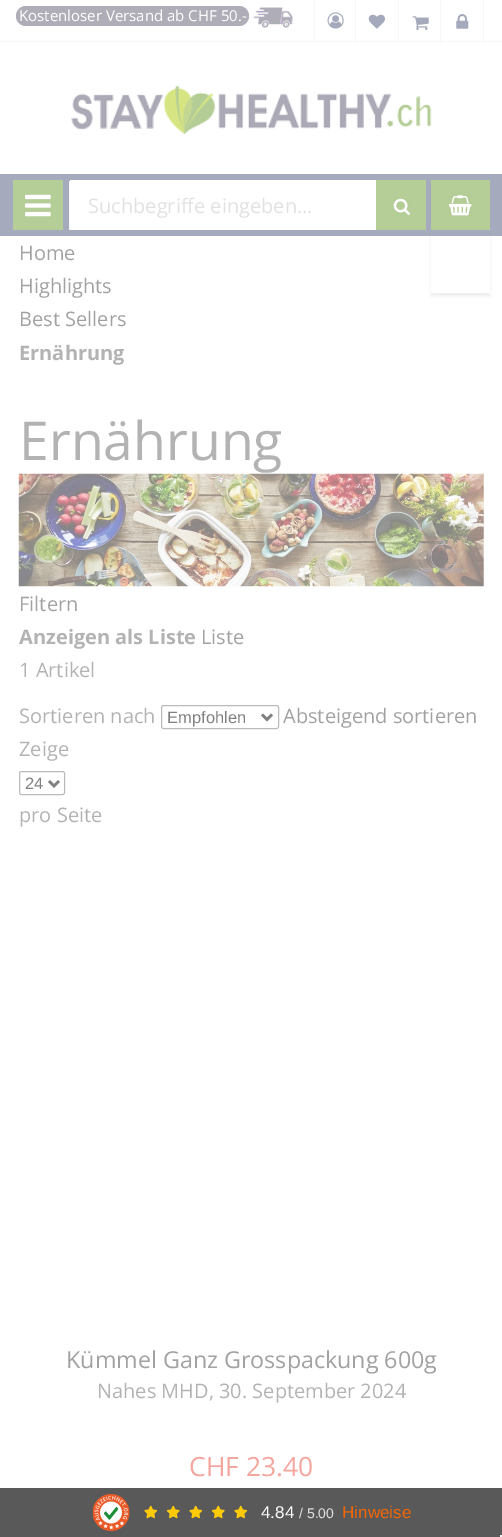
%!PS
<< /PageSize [502 1537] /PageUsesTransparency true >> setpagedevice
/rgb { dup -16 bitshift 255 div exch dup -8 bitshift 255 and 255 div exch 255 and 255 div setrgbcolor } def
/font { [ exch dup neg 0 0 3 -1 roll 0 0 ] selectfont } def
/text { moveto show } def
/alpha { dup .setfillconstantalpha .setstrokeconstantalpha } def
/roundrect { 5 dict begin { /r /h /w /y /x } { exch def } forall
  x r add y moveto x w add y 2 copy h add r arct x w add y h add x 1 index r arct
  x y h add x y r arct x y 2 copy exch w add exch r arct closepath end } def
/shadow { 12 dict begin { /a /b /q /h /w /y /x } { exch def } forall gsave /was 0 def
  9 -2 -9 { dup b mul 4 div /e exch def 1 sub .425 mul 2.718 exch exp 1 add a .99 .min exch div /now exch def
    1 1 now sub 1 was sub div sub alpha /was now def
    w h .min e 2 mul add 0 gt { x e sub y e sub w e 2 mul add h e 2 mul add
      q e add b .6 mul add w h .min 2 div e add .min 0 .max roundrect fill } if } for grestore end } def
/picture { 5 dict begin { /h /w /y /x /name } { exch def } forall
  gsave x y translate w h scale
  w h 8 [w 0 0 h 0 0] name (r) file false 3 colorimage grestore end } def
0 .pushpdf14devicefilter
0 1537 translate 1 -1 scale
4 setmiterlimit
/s1 { /OpenSans-Regular 15 font 16#FFFFFF rgb } def
/s2 { /OpenSans-Regular 20 font 16#E1E1E1 rgb } def
/s3 { /OpenSans-Regular 20 font 16#A2A2A2 rgb } def
/s4 { /OpenSans-Bold 20 font 16#B3B3B3 rgb } def
/s5 { /OpenSans-Regular 53.5 font 16#B3B3B3 rgb } def
/s6 { /OpenSans-Regular 20 font 16#B3B3B3 rgb } def
/s7 { /LiberationSans-Regular 16.5 font 16#808080 rgb } def
/s8 { /OpenSans-Regular 23.3 font 16#A2A2A2 rgb } def
/s9 { /OpenSans-Regular 26.5 font 16#F3A69E rgb } def
/s10 { /LiberationSans-Regular 17 font 16#FFFFFF rgb } def
/s11 { /LiberationSans-Regular 14 font 16#E1E1E1 rgb } def
/s12 { /LiberationSans-Regular 17 font 16#F86603 rgb } def
16#FFFFFF rgb
0 0 502 1537 rectfill
16#F7F7F7 rgb
0 41 502 1 rectfill
16#AFADB7 rgb
16 6 233 20 10 roundrect fill
s1
(Kostenloser Versand ab CHF 50.-) 19 21 text
(pic1.raw) 253 7 40 21 picture
16#F7F7F7 rgb
355 0 1 43 rectfill
314 0 1 43 rectfill
(pic2.raw) 327 12 17 17 picture
398 0 1 43 rectfill
(pic3.raw) 368 14 17 15 picture
440 0 1 43 rectfill
(pic4.raw) 412 16 17 14 picture
483 0 1 43 rectfill
(pic5.raw) 456 14 13 15 picture
16#A5ABBC rgb
0 174 502 62 rectfill
16#B5CD97 rgb
13 180 50 50 rectfill
(pic6.raw) 25 194 26 23 picture
(pic7.raw) 71 85 361 50 picture
16#FFFFFF rgb
70 180 moveto 376 180 lineto 377 180 378 181 378 181 curveto 378 229 lineto 378 229 377 230 376 230 curveto 70 230 lineto closepath fill
16#F7F7F7 rgb
69 181 1 49 rectfill
s2
(Suchbegriffe eingeben...) 88 213 text
16#B5CD97 rgb
376 180 50 50 rectfill
(pic8.raw) 393 198 17 17 picture
gsave
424 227 moveto 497 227 lineto 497 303 lineto 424 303 lineto closepath 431 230 moveto 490 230 lineto 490 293 lineto 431 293 lineto closepath eoclip newpath
16#808080 rgb
431 234 59 62 0 2 0.15 shadow
grestore
431 180 59 50 rectfill
(pic9.raw) 449 195 23 21 picture
s3
(Home) 19 260 text
(Highlights) 19 293 text
(Best Sellers) 19 326 text
s4
(Ernährung) 19 360 text
s5
(Ernährung) 19 460 text
(pic10.raw) 18 473 466 114 picture
s3
(Filtern) 19 611 text
s4
(Anzeigen als Liste) 19 644 text
s3
(Liste) 201 644 text
s6
(1 Artikel) 19 677 text
(Sortieren nach) 19 723 text
16#BBBBBB rgb
161.5 705.5 117 23 2 roundrect stroke
16#808080 rgb
2.5 setlinewidth
262 714.5 moveto 267 719.5 lineto 272 714.5 lineto stroke
s7
(Empfohlen) 167 723 text
s3
(Absteigend sortieren) 283 723 text
s6
(Zeige) 19 756 text
16#BBBBBB rgb
1 setlinewidth
19.5 771.5 45 23 2 roundrect stroke
16#808080 rgb
2.5 setlinewidth
49 781 moveto 54 786 lineto 59 781 lineto stroke
s7
(24) 25 789 text
s6
(pro Seite) 19 822 text
s8
(Kümmel Ganz Grosspackung 600g) 66 1368 text
s6
(Nahes MHD, 30. September 2024) 97 1398 text
s9
(CHF 23.40) 189 1476 text
16#595959 rgb
0 1488 502 49 rectfill
(pic11.raw) 93 1494 37 37 picture
(pic12.raw) 144 1505 14 14 picture
(pic13.raw) 166 1505 14 14 picture
(pic12.raw) 189 1505 14 14 picture
(pic13.raw) 211 1505 14 14 picture
(pic12.raw) 234 1505 14 14 picture
s10
(4.84) 261 1518 text
s11
(/ 5.00) 299 1518 text
s12
(Hinweise) 342 1518 text
16#F5F5F5 rgb
500 1535 2 2 rectfill
.poppdf14devicefilter showpage
